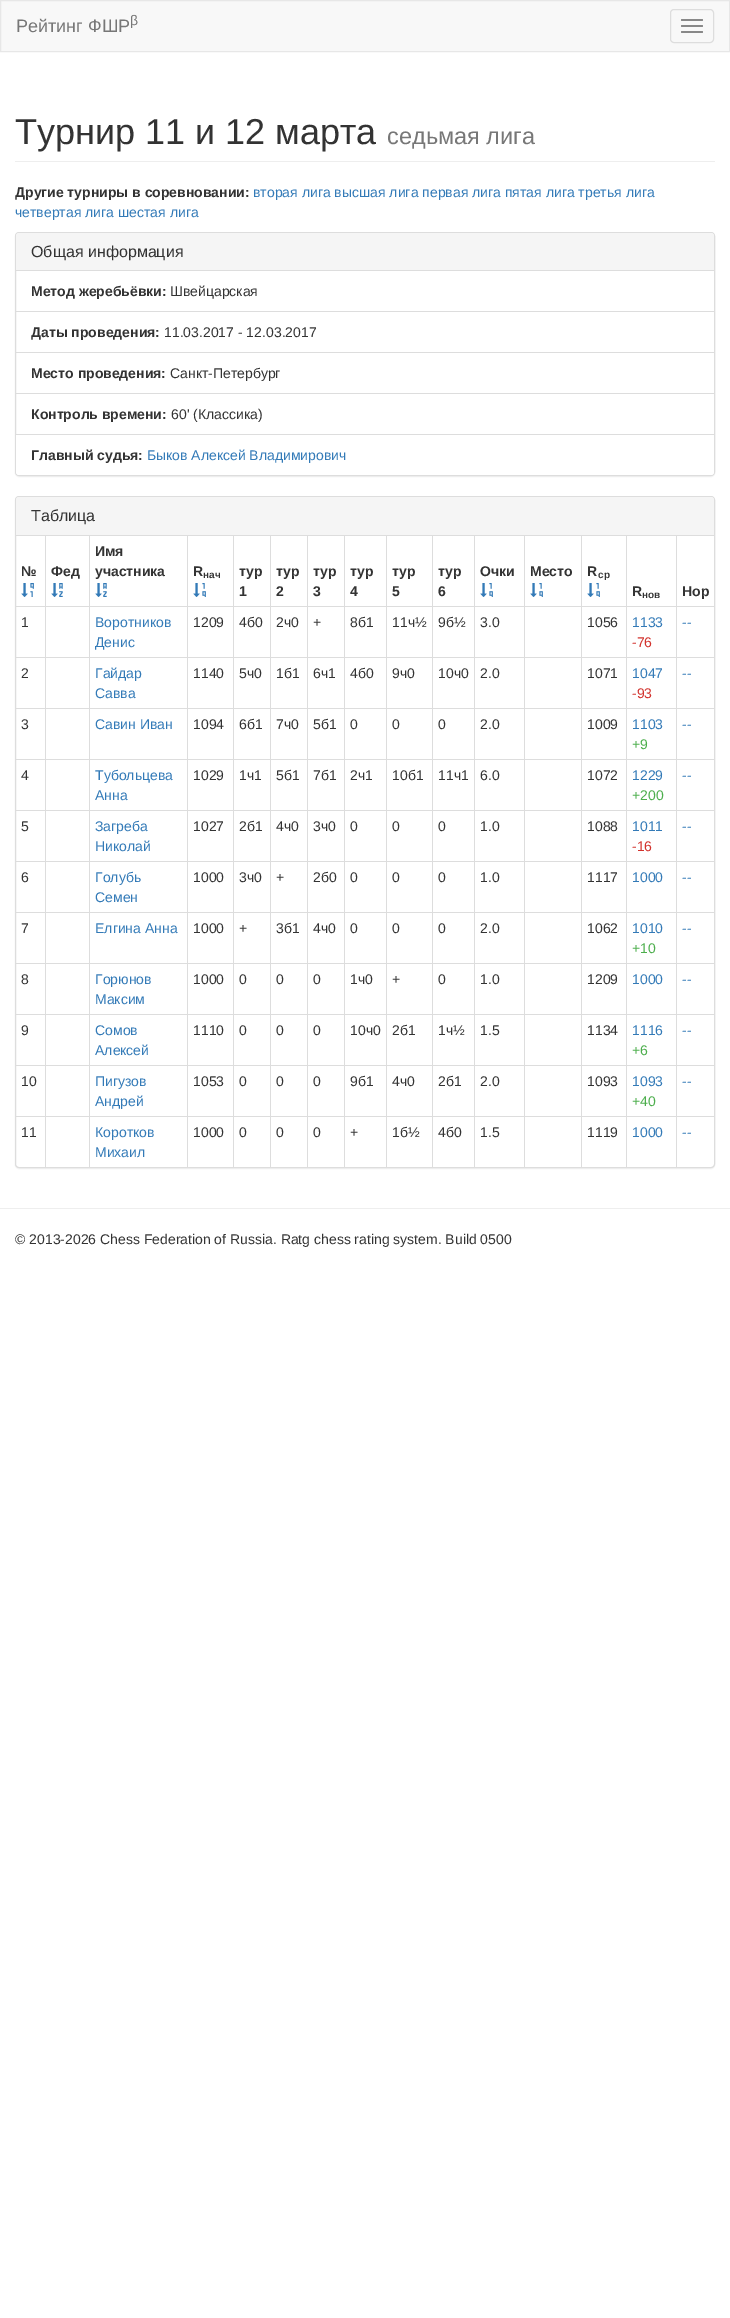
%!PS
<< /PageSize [730 2318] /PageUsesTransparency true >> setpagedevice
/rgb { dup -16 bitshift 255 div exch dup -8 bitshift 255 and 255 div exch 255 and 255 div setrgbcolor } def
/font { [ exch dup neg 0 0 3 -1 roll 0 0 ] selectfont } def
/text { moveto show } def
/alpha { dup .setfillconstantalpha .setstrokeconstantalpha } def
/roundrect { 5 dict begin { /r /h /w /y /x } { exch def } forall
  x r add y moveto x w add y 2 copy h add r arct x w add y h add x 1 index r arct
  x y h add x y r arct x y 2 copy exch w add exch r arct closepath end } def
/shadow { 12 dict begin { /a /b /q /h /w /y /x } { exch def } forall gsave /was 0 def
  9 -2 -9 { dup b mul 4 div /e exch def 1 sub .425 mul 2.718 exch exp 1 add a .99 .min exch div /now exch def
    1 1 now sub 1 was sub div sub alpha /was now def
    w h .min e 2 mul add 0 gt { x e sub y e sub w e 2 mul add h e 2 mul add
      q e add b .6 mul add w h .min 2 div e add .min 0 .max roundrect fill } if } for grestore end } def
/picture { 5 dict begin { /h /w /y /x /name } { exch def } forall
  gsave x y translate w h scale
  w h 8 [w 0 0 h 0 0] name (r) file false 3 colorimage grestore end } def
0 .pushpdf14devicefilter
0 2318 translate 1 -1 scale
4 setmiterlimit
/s1 { /LiberationSans-Regular 18 font 16#777777 rgb } def
/s2 { /LiberationSans-Regular 14 font 16#777777 rgb } def
/s3 { /LiberationSans-Regular 36 font 16#333333 rgb } def
/s4 { /LiberationSans-Regular 23.5 font 16#777777 rgb } def
/s5 { /LiberationSans-Bold 14 font 16#333333 rgb } def
/s6 { /LiberationSans-Regular 14 font 16#337AB7 rgb } def
/s7 { /LiberationSans-Regular 16 font 16#333333 rgb } def
/s8 { /LiberationSans-Regular 14 font 16#333333 rgb } def
/s9 { /LiberationSans-Bold 10 font 16#333333 rgb } def
/s10 { /LiberationSans-Regular 14 font 16#D2322D rgb } def
/s11 { /LiberationSans-Regular 14 font 16#4CAE4C rgb } def
16#FFFFFF rgb
0 0 730 2318 rectfill
16#F8F8F8 rgb
0.5 0.5 moveto 729.5 0.5 lineto 729.5 51.5 lineto 0.5 51.5 lineto closepath gsave fill grestore
16#E7E7E7 rgb
stroke
s1
(Рейтинг ФШР) 16 32 text
s2
(β) 130 25 text
16#DDDDDD rgb
670.5 9.5 43 33 3.5 roundrect stroke
16#888888 rgb
681 19 22 2 1 roundrect fill
681 25 22 2 1 roundrect fill
681 31 22 2 1 roundrect fill
16#EEEEEE rgb
15 161 700 1 rectfill
s3
(Турнир 11 и 12 марта) 15 144 text
s4
(седьмая лига) 387 144 text
s5
(Другие турниры в соревновании:) 15 197 text
s6
(вторая лига высшая лига первая лига пятая лига третья лига) 253 197 text
(четвертая лига шестая лига) 15 217 text
16#000000 rgb
15 233 700 244 4 0.5 0.05 shadow
16#FFFFFF rgb
15.5 232.5 699 243 3.5 roundrect gsave fill grestore
16#DDDDDD rgb
stroke
16#F5F5F5 rgb
19 233 moveto 711 233 lineto 712.5 233 714 234.5 714 236 curveto 714 271 lineto 16 271 lineto 16 236 lineto 16 234.5 17.5 233 19 233 curveto closepath fill
16#DDDDDD rgb
16 270 698 1 rectfill
s7
(Общая информация) 31 257 text
16#DDDDDD rgb
16 311 698 1 rectfill
s5
(Метод жеребьёвки:) 31 296 text
s8
(Швейцарская) 170 296 text
16#DDDDDD rgb
16 352 698 1 rectfill
s5
(Даты проведения:) 31 337 text
s8
(11.03.2017 - 12.03.2017) 164 337 text
16#DDDDDD rgb
16 393 698 1 rectfill
s5
(Место проведения:) 31 378 text
s8
(Санкт-Петербург) 170 378 text
s5
(Контроль времени:) 31 419 text
s8
(60' \(Классика\)) 171 419 text
16#FFFFFF rgb
16 434 moveto 714 434 lineto 714 472 lineto 714 473.5 712.5 475 711 475 curveto 19 475 lineto 17.5 475 16 473.5 16 472 curveto closepath fill
16#DDDDDD rgb
16 434 698 1 rectfill
s5
(Главный судья:) 31 460 text
s6
(Быков Алексей Владимирович) 147 460 text
16#000000 rgb
15 497 700 672 4 0.5 0.05 shadow
16#FFFFFF rgb
15.5 496.5 699 671 3.5 roundrect gsave fill grestore
16#DDDDDD rgb
stroke
16#F5F5F5 rgb
19 497 moveto 711 497 lineto 712.5 497 714 498.5 714 500 curveto 714 536 lineto 16 536 lineto 16 500 lineto 16 498.5 17.5 497 19 497 curveto closepath fill
16#DDDDDD rgb
16 535 698 1 rectfill
s7
(Таблица) 31 521 text
s5
(№) 21 576 text
(pic1.raw) 21 583 13 14 picture
16#DDDDDD rgb
676 606 39 1 rectfill
676 657 39 1 rectfill
676 708 39 1 rectfill
676 759 39 1 rectfill
676 810 39 1 rectfill
676 861 39 1 rectfill
676 912 39 1 rectfill
676 963 39 1 rectfill
676 1014 39 1 rectfill
676 1065 39 1 rectfill
676 1116 39 1 rectfill
676 1116 1 51 rectfill
626 1116 51 1 rectfill
676 1065 1 52 rectfill
626 1065 51 1 rectfill
676 1014 1 52 rectfill
626 1014 51 1 rectfill
676 963 1 52 rectfill
626 963 51 1 rectfill
676 912 1 52 rectfill
626 912 51 1 rectfill
676 861 1 52 rectfill
626 861 51 1 rectfill
676 810 1 52 rectfill
626 810 51 1 rectfill
676 759 1 52 rectfill
626 759 51 1 rectfill
676 708 1 52 rectfill
626 708 51 1 rectfill
676 657 1 52 rectfill
626 657 51 1 rectfill
676 606 1 52 rectfill
626 606 51 1 rectfill
626 1116 1 51 rectfill
581 1116 46 1 rectfill
626 1065 1 52 rectfill
581 1065 46 1 rectfill
626 1014 1 52 rectfill
581 1014 46 1 rectfill
626 963 1 52 rectfill
581 963 46 1 rectfill
626 912 1 52 rectfill
581 912 46 1 rectfill
626 861 1 52 rectfill
581 861 46 1 rectfill
626 810 1 52 rectfill
581 810 46 1 rectfill
626 759 1 52 rectfill
581 759 46 1 rectfill
626 708 1 52 rectfill
581 708 46 1 rectfill
626 657 1 52 rectfill
581 657 46 1 rectfill
626 606 1 52 rectfill
581 606 46 1 rectfill
581 1116 1 51 rectfill
524 1116 58 1 rectfill
581 1065 1 52 rectfill
524 1065 58 1 rectfill
581 1014 1 52 rectfill
524 1014 58 1 rectfill
581 963 1 52 rectfill
524 963 58 1 rectfill
581 912 1 52 rectfill
524 912 58 1 rectfill
581 861 1 52 rectfill
524 861 58 1 rectfill
581 810 1 52 rectfill
524 810 58 1 rectfill
581 759 1 52 rectfill
524 759 58 1 rectfill
581 708 1 52 rectfill
524 708 58 1 rectfill
581 657 1 52 rectfill
524 657 58 1 rectfill
581 606 1 52 rectfill
524 606 58 1 rectfill
524 1116 1 51 rectfill
474 1116 51 1 rectfill
524 1065 1 52 rectfill
474 1065 51 1 rectfill
524 1014 1 52 rectfill
474 1014 51 1 rectfill
524 963 1 52 rectfill
474 963 51 1 rectfill
524 912 1 52 rectfill
474 912 51 1 rectfill
524 861 1 52 rectfill
474 861 51 1 rectfill
524 810 1 52 rectfill
474 810 51 1 rectfill
524 759 1 52 rectfill
474 759 51 1 rectfill
524 708 1 52 rectfill
474 708 51 1 rectfill
524 657 1 52 rectfill
474 657 51 1 rectfill
524 606 1 52 rectfill
474 606 51 1 rectfill
474 1116 1 51 rectfill
432 1116 43 1 rectfill
474 1065 1 52 rectfill
432 1065 43 1 rectfill
474 1014 1 52 rectfill
432 1014 43 1 rectfill
474 963 1 52 rectfill
432 963 43 1 rectfill
474 912 1 52 rectfill
432 912 43 1 rectfill
474 861 1 52 rectfill
432 861 43 1 rectfill
474 810 1 52 rectfill
432 810 43 1 rectfill
474 759 1 52 rectfill
432 759 43 1 rectfill
474 708 1 52 rectfill
432 708 43 1 rectfill
474 657 1 52 rectfill
432 657 43 1 rectfill
474 606 1 52 rectfill
432 606 43 1 rectfill
432 1116 1 51 rectfill
386 1116 47 1 rectfill
432 1065 1 52 rectfill
386 1065 47 1 rectfill
432 1014 1 52 rectfill
386 1014 47 1 rectfill
432 963 1 52 rectfill
386 963 47 1 rectfill
432 912 1 52 rectfill
386 912 47 1 rectfill
432 861 1 52 rectfill
386 861 47 1 rectfill
432 810 1 52 rectfill
386 810 47 1 rectfill
432 759 1 52 rectfill
386 759 47 1 rectfill
432 708 1 52 rectfill
386 708 47 1 rectfill
432 657 1 52 rectfill
386 657 47 1 rectfill
432 606 1 52 rectfill
386 606 47 1 rectfill
386 1116 1 51 rectfill
344 1116 43 1 rectfill
386 1065 1 52 rectfill
344 1065 43 1 rectfill
386 1014 1 52 rectfill
344 1014 43 1 rectfill
386 963 1 52 rectfill
344 963 43 1 rectfill
386 912 1 52 rectfill
344 912 43 1 rectfill
386 861 1 52 rectfill
344 861 43 1 rectfill
386 810 1 52 rectfill
344 810 43 1 rectfill
386 759 1 52 rectfill
344 759 43 1 rectfill
386 708 1 52 rectfill
344 708 43 1 rectfill
386 657 1 52 rectfill
344 657 43 1 rectfill
386 606 1 52 rectfill
344 606 43 1 rectfill
344 1116 1 51 rectfill
307 1116 38 1 rectfill
344 1065 1 52 rectfill
307 1065 38 1 rectfill
344 1014 1 52 rectfill
307 1014 38 1 rectfill
344 963 1 52 rectfill
307 963 38 1 rectfill
344 912 1 52 rectfill
307 912 38 1 rectfill
344 861 1 52 rectfill
307 861 38 1 rectfill
344 810 1 52 rectfill
307 810 38 1 rectfill
344 759 1 52 rectfill
307 759 38 1 rectfill
344 708 1 52 rectfill
307 708 38 1 rectfill
344 657 1 52 rectfill
307 657 38 1 rectfill
344 606 1 52 rectfill
307 606 38 1 rectfill
307 1116 1 51 rectfill
270 1116 38 1 rectfill
307 1065 1 52 rectfill
270 1065 38 1 rectfill
307 1014 1 52 rectfill
270 1014 38 1 rectfill
307 963 1 52 rectfill
270 963 38 1 rectfill
307 912 1 52 rectfill
270 912 38 1 rectfill
307 861 1 52 rectfill
270 861 38 1 rectfill
307 810 1 52 rectfill
270 810 38 1 rectfill
307 759 1 52 rectfill
270 759 38 1 rectfill
307 708 1 52 rectfill
270 708 38 1 rectfill
307 657 1 52 rectfill
270 657 38 1 rectfill
307 606 1 52 rectfill
270 606 38 1 rectfill
270 1116 1 51 rectfill
233 1116 38 1 rectfill
270 1065 1 52 rectfill
233 1065 38 1 rectfill
270 1014 1 52 rectfill
233 1014 38 1 rectfill
270 963 1 52 rectfill
233 963 38 1 rectfill
270 912 1 52 rectfill
233 912 38 1 rectfill
270 861 1 52 rectfill
233 861 38 1 rectfill
270 810 1 52 rectfill
233 810 38 1 rectfill
270 759 1 52 rectfill
233 759 38 1 rectfill
270 708 1 52 rectfill
233 708 38 1 rectfill
270 657 1 52 rectfill
233 657 38 1 rectfill
270 606 1 52 rectfill
233 606 38 1 rectfill
233 1116 1 51 rectfill
187 1116 47 1 rectfill
233 1065 1 52 rectfill
187 1065 47 1 rectfill
233 1014 1 52 rectfill
187 1014 47 1 rectfill
233 963 1 52 rectfill
187 963 47 1 rectfill
233 912 1 52 rectfill
187 912 47 1 rectfill
233 861 1 52 rectfill
187 861 47 1 rectfill
233 810 1 52 rectfill
187 810 47 1 rectfill
233 759 1 52 rectfill
187 759 47 1 rectfill
233 708 1 52 rectfill
187 708 47 1 rectfill
233 657 1 52 rectfill
187 657 47 1 rectfill
233 606 1 52 rectfill
187 606 47 1 rectfill
187 1116 1 51 rectfill
89 1116 99 1 rectfill
187 1065 1 52 rectfill
89 1065 99 1 rectfill
187 1014 1 52 rectfill
89 1014 99 1 rectfill
187 963 1 52 rectfill
89 963 99 1 rectfill
187 912 1 52 rectfill
89 912 99 1 rectfill
187 861 1 52 rectfill
89 861 99 1 rectfill
187 810 1 52 rectfill
89 810 99 1 rectfill
187 759 1 52 rectfill
89 759 99 1 rectfill
187 708 1 52 rectfill
89 708 99 1 rectfill
187 657 1 52 rectfill
89 657 99 1 rectfill
187 606 1 52 rectfill
89 606 99 1 rectfill
89 1116 1 51 rectfill
45 1116 45 1 rectfill
89 1065 1 52 rectfill
45 1065 45 1 rectfill
89 1014 1 52 rectfill
45 1014 45 1 rectfill
89 963 1 52 rectfill
45 963 45 1 rectfill
89 912 1 52 rectfill
45 912 45 1 rectfill
89 861 1 52 rectfill
45 861 45 1 rectfill
89 810 1 52 rectfill
45 810 45 1 rectfill
89 759 1 52 rectfill
45 759 45 1 rectfill
89 708 1 52 rectfill
45 708 45 1 rectfill
89 657 1 52 rectfill
45 657 45 1 rectfill
89 606 1 52 rectfill
45 606 45 1 rectfill
45 1116 1 51 rectfill
16 1116 30 1 rectfill
45 1065 1 52 rectfill
16 1065 30 1 rectfill
45 1014 1 52 rectfill
16 1014 30 1 rectfill
45 963 1 52 rectfill
16 963 30 1 rectfill
45 912 1 52 rectfill
16 912 30 1 rectfill
45 861 1 52 rectfill
16 861 30 1 rectfill
45 810 1 52 rectfill
16 810 30 1 rectfill
45 759 1 52 rectfill
16 759 30 1 rectfill
45 708 1 52 rectfill
16 708 30 1 rectfill
45 657 1 52 rectfill
16 657 30 1 rectfill
45 606 1 52 rectfill
16 606 30 1 rectfill
45 535 1 72 rectfill
s5
(Фед) 51 576 text
(pic2.raw) 51 583 12 14 picture
16#DDDDDD rgb
89 535 1 72 rectfill
s5
(Имя) 95 556 text
(участника) 95 576 text
(pic2.raw) 95 583 12 14 picture
16#DDDDDD rgb
187 535 1 72 rectfill
s5
(R) 193 576 text
s9
(нач) 203 578 text
(pic3.raw) 193 583 13 14 picture
16#DDDDDD rgb
233 535 1 72 rectfill
s5
(тур) 239 576 text
(1) 239 596 text
16#DDDDDD rgb
270 535 1 72 rectfill
s5
(тур) 276 576 text
(2) 276 596 text
16#DDDDDD rgb
307 535 1 72 rectfill
s5
(тур) 313 576 text
(3) 313 596 text
16#DDDDDD rgb
344 535 1 72 rectfill
s5
(тур) 350 576 text
(4) 350 596 text
16#DDDDDD rgb
386 535 1 72 rectfill
s5
(тур) 392 576 text
(5) 392 596 text
16#DDDDDD rgb
432 535 1 72 rectfill
s5
(тур) 438 576 text
(6) 438 596 text
16#DDDDDD rgb
474 535 1 72 rectfill
s5
(Очки) 480 576 text
(pic3.raw) 480 583 13 14 picture
16#DDDDDD rgb
524 535 1 72 rectfill
s5
(Место) 530 576 text
(pic3.raw) 530 583 13 14 picture
16#DDDDDD rgb
581 535 1 72 rectfill
s5
(R) 587 576 text
s9
(ср) 598 578 text
(pic3.raw) 587 583 13 14 picture
16#DDDDDD rgb
626 535 1 72 rectfill
s5
(R) 632 596 text
s9
(нов) 642 598 text
16#DDDDDD rgb
676 535 1 72 rectfill
s5
(Нор) 682 596 text
s8
(1) 21 627 text
s6
(Воротников) 95 627 text
(Денис) 95 647 text
s8
(1209) 193 627 text
(4б0) 239 627 text
(2ч0) 276 627 text
(+) 313 627 text
(8б1) 350 627 text
(11ч½) 392 627 text
(9б½) 438 627 text
(3.0) 480 627 text
(1056) 587 627 text
s6
(1133) 632 627 text
s10
(-76) 632 647 text
s6
(--) 682 627 text
s8
(2) 21 678 text
s6
(Гайдар) 95 678 text
(Савва) 95 698 text
s8
(1140) 193 678 text
(5ч0) 239 678 text
(1б1) 276 678 text
(6ч1) 313 678 text
(4б0) 350 678 text
(9ч0) 392 678 text
(10ч0) 438 678 text
(2.0) 480 678 text
(1071) 587 678 text
s6
(1047) 632 678 text
s10
(-93) 632 698 text
s6
(--) 682 678 text
s8
(3) 21 729 text
s6
(Савин Иван) 95 729 text
s8
(1094) 193 729 text
(6б1) 239 729 text
(7ч0) 276 729 text
(5б1) 313 729 text
(0) 350 729 text
(0) 392 729 text
(0) 438 729 text
(2.0) 480 729 text
(1009) 587 729 text
s6
(1103) 632 729 text
s11
(+9) 632 749 text
s6
(--) 682 729 text
s8
(4) 21 780 text
s6
(Тубольцева) 95 780 text
(Анна) 95 800 text
s8
(1029) 193 780 text
(1ч1) 239 780 text
(5б1) 276 780 text
(7б1) 313 780 text
(2ч1) 350 780 text
(10б1) 392 780 text
(11ч1) 438 780 text
(6.0) 480 780 text
(1072) 587 780 text
s6
(1229) 632 780 text
s11
(+200) 632 800 text
s6
(--) 682 780 text
s8
(5) 21 831 text
s6
(Загреба) 95 831 text
(Николай) 95 851 text
s8
(1027) 193 831 text
(2б1) 239 831 text
(4ч0) 276 831 text
(3ч0) 313 831 text
(0) 350 831 text
(0) 392 831 text
(0) 438 831 text
(1.0) 480 831 text
(1088) 587 831 text
s6
(1011) 632 831 text
s10
(-16) 632 851 text
s6
(--) 682 831 text
s8
(6) 21 882 text
s6
(Голубь) 95 882 text
(Семен) 95 902 text
s8
(1000) 193 882 text
(3ч0) 239 882 text
(+) 276 882 text
(2б0) 313 882 text
(0) 350 882 text
(0) 392 882 text
(0) 438 882 text
(1.0) 480 882 text
(1117) 587 882 text
s6
(1000) 632 882 text
(--) 682 882 text
s8
(7) 21 933 text
s6
(Елгина Анна) 95 933 text
s8
(1000) 193 933 text
(+) 239 933 text
(3б1) 276 933 text
(4ч0) 313 933 text
(0) 350 933 text
(0) 392 933 text
(0) 438 933 text
(2.0) 480 933 text
(1062) 587 933 text
s6
(1010) 632 933 text
s11
(+10) 632 953 text
s6
(--) 682 933 text
s8
(8) 21 984 text
s6
(Горюнов) 95 984 text
(Максим) 95 1004 text
s8
(1000) 193 984 text
(0) 239 984 text
(0) 276 984 text
(0) 313 984 text
(1ч0) 350 984 text
(+) 392 984 text
(0) 438 984 text
(1.0) 480 984 text
(1209) 587 984 text
s6
(1000) 632 984 text
(--) 682 984 text
s8
(9) 21 1035 text
s6
(Сомов) 95 1035 text
(Алексей) 95 1055 text
s8
(1110) 193 1035 text
(0) 239 1035 text
(0) 276 1035 text
(0) 313 1035 text
(10ч0) 350 1035 text
(2б1) 392 1035 text
(1ч½) 438 1035 text
(1.5) 480 1035 text
(1134) 587 1035 text
s6
(1116) 632 1035 text
s11
(+6) 632 1055 text
s6
(--) 682 1035 text
s8
(10) 21 1086 text
s6
(Пигузов) 95 1086 text
(Андрей) 95 1106 text
s8
(1053) 193 1086 text
(0) 239 1086 text
(0) 276 1086 text
(0) 313 1086 text
(9б1) 350 1086 text
(4ч0) 392 1086 text
(2б1) 438 1086 text
(2.0) 480 1086 text
(1093) 587 1086 text
s6
(1093) 632 1086 text
s11
(+40) 632 1106 text
s6
(--) 682 1086 text
s8
(11) 21 1137 text
s6
(Коротков) 95 1137 text
(Михаил) 95 1157 text
s8
(1000) 193 1137 text
(0) 239 1137 text
(0) 276 1137 text
(0) 313 1137 text
(+) 350 1137 text
(1б½) 392 1137 text
(4б0) 438 1137 text
(1.5) 480 1137 text
(1119) 587 1137 text
s6
(1000) 632 1137 text
(--) 682 1137 text
16#EEEEEE rgb
0 1208 730 1 rectfill
s8
(© 2013-2026 Chess Federation of Russia. Ratg chess rating system. Build 0500) 15 1244 text
.poppdf14devicefilter showpage
